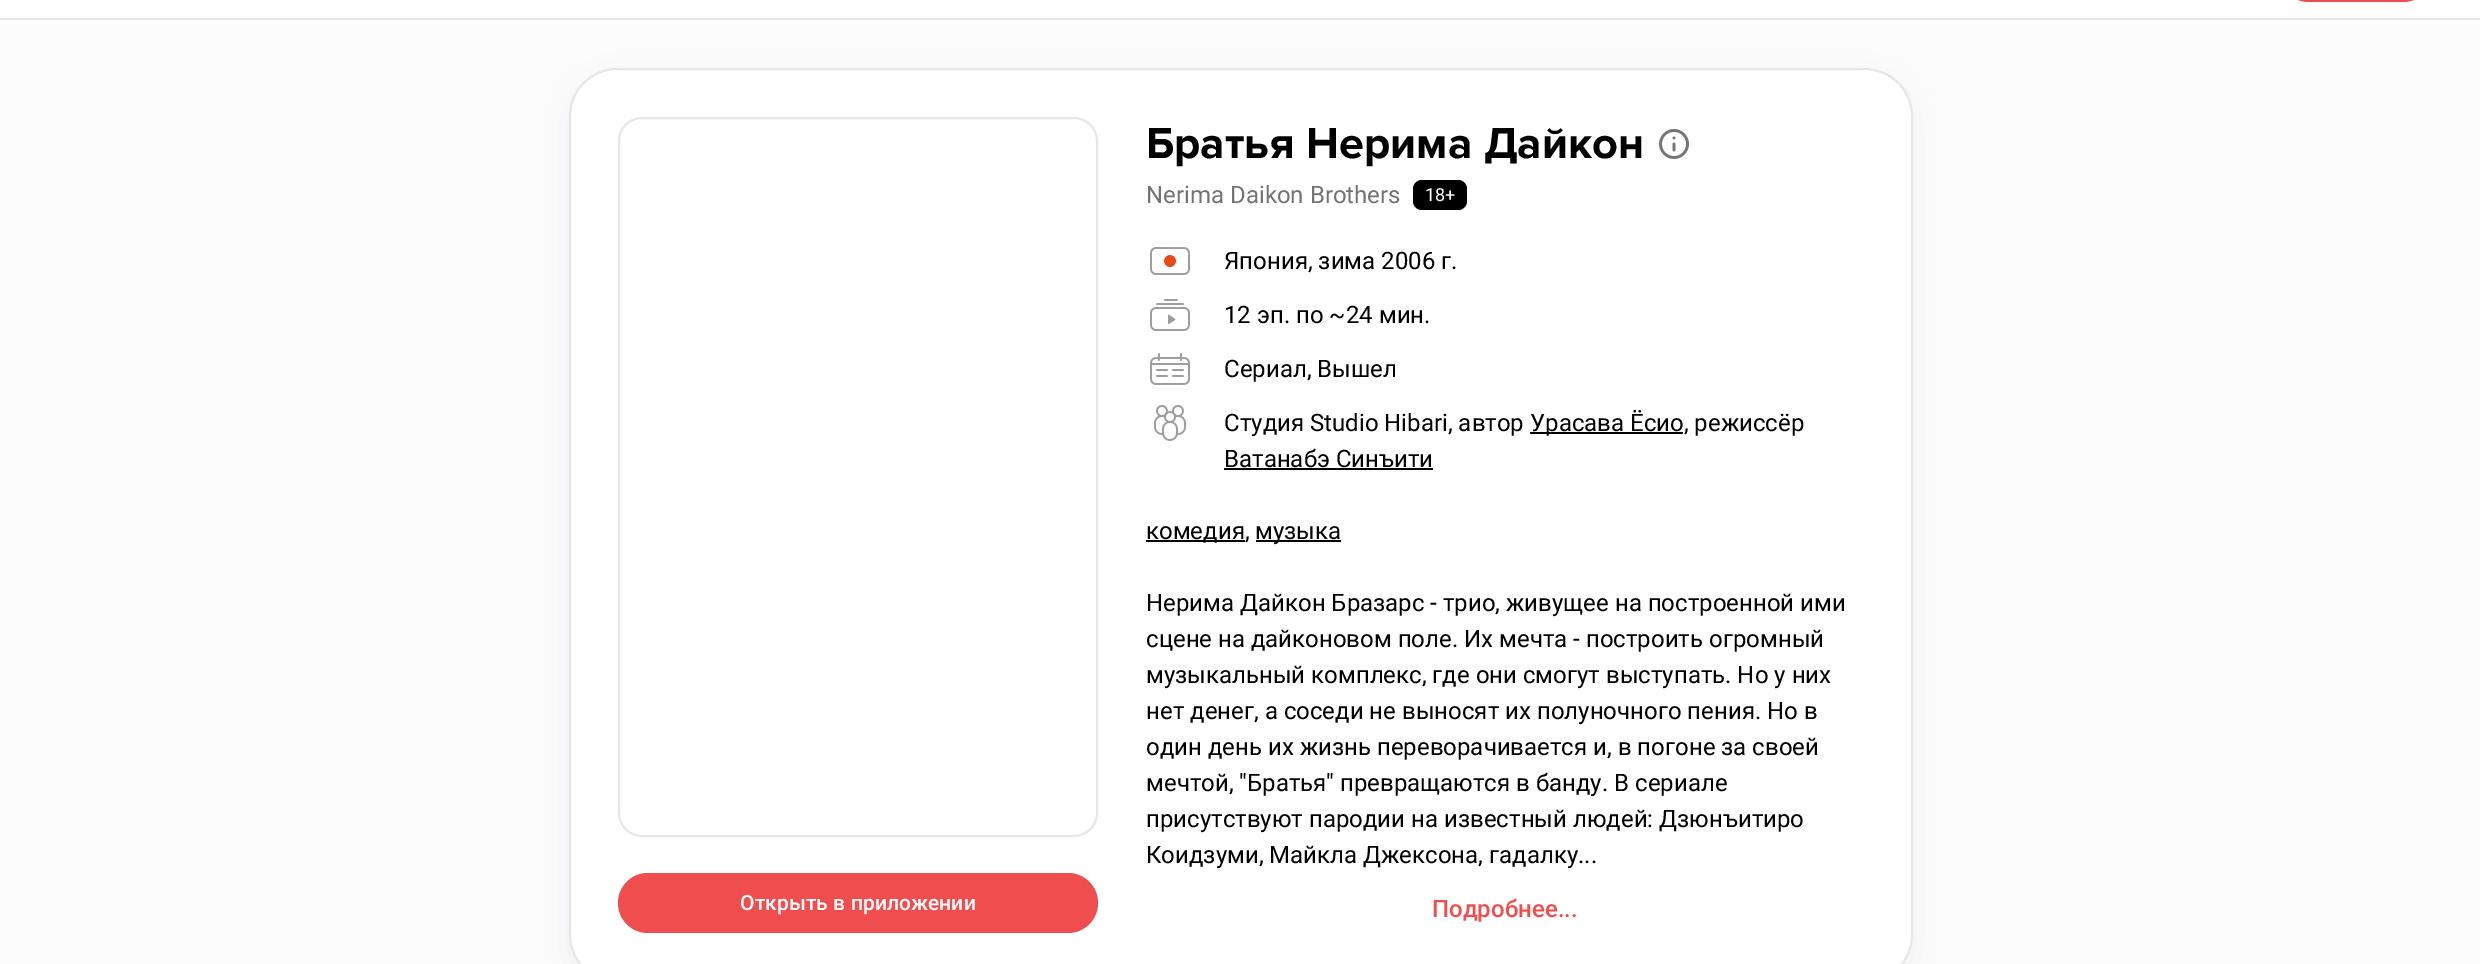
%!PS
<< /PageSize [2480 964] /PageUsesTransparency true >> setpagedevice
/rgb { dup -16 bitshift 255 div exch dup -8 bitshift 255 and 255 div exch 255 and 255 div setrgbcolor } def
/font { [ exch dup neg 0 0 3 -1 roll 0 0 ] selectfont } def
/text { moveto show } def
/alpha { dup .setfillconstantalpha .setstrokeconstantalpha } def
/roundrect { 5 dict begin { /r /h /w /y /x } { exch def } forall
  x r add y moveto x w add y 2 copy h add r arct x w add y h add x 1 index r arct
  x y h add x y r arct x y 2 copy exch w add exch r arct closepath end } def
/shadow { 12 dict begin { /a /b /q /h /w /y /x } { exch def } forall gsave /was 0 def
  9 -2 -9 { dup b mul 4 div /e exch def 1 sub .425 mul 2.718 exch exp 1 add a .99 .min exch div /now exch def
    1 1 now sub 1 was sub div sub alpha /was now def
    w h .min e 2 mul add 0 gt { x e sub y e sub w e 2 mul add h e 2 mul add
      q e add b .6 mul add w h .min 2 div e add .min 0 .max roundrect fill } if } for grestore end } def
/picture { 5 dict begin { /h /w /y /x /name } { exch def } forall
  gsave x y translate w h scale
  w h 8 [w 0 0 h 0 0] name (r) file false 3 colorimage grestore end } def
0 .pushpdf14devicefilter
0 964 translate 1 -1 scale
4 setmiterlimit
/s1 { /ProximaNova-Bold 45 font 16#000000 rgb } def
/s2 { /Roboto-Regular 24 font 16#737373 rgb } def
/s3 { /Roboto-Regular 18 font 16#FFFFFF rgb } def
/s4 { /Roboto-Regular 24 font 16#000000 rgb } def
/s5 { /Roboto-Medium 24 font 16#F04E4E rgb } def
16#FCFCFC rgb
0 0 2480 964 rectfill
16#FFFFFF rgb
0 0 2480 18 rectfill
16#E5E7EB rgb
0 18 2480 2 rectfill
16#F04E4E rgb
2279 -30 154 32 30 roundrect fill
16#333333 rgb
569 78 1344 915 48 16 0.05 shadow
16#FFFFFF rgb
570 69 1342 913 47 roundrect gsave fill grestore
16#E5E7EB rgb
2 setlinewidth
stroke
619 118 478 718 23 roundrect stroke
16#F04E4E rgb
618 873 480 60 30 roundrect fill
/Roboto-Medium 21 font
16#FFFFFF rgb
740 910 moveto 0.1 0 (Открыть в приложении) ashow
s1
(Братья Нерима Дайкон) 1146 158 text
(pic1.raw) 1659 129 30 30 picture
s2
(Nerima Daikon Brothers) 1146 203 text
16#000000 rgb
1413 180 54 30 9 roundrect fill
s3
(18+) 1425 201 text
(pic2.raw) 1150 247 40 28 picture
s4
(Япония, зима 2006 г.) 1224 269 text
(pic3.raw) 1150 299 40 32 picture
(12 эп. по ~24 мин.) 1224 323 text
(pic4.raw) 1150 353 40 32 picture
(Сериал, Вышел) 1224 377 text
(pic5.raw) 1154 405 32 36 picture
(Студия Studio Hibari, автор) 1224 431 text
1530 432 153 2 rectfill
(Урасава Ёсио, режиссёр) 1530 431 text
(Ватанабэ Синъити) 1224 467 text
1224 468 209 2 rectfill
1146 540 99 2 rectfill
(комедия,) 1146 539 text
1256 540 85 2 rectfill
(музыка) 1255 539 text
(Нерима Дайкон Бразарс - трио, живущее на построенной ими) 1146 611 text
(сцене на дайконовом поле. Их мечта - построить огромный) 1146 647 text
(музыкальный комплекс, где они смогут выступать. Но у них) 1146 683 text
(нет денег, а соседи не выносят их полуночного пения. Но в) 1146 719 text
(один день их жизнь переворачивается и, в погоне за своей) 1146 755 text
(мечтой, "Братья" превращаются в банду. В сериале) 1146 791 text
(присутствуют пародии на известный людей: Дзюнъитиро) 1146 827 text
(Коидзуми, Майкла Джексона, гадалку...) 1146 863 text
s5
(Подробнее...) 1432 917 text
.poppdf14devicefilter showpage
